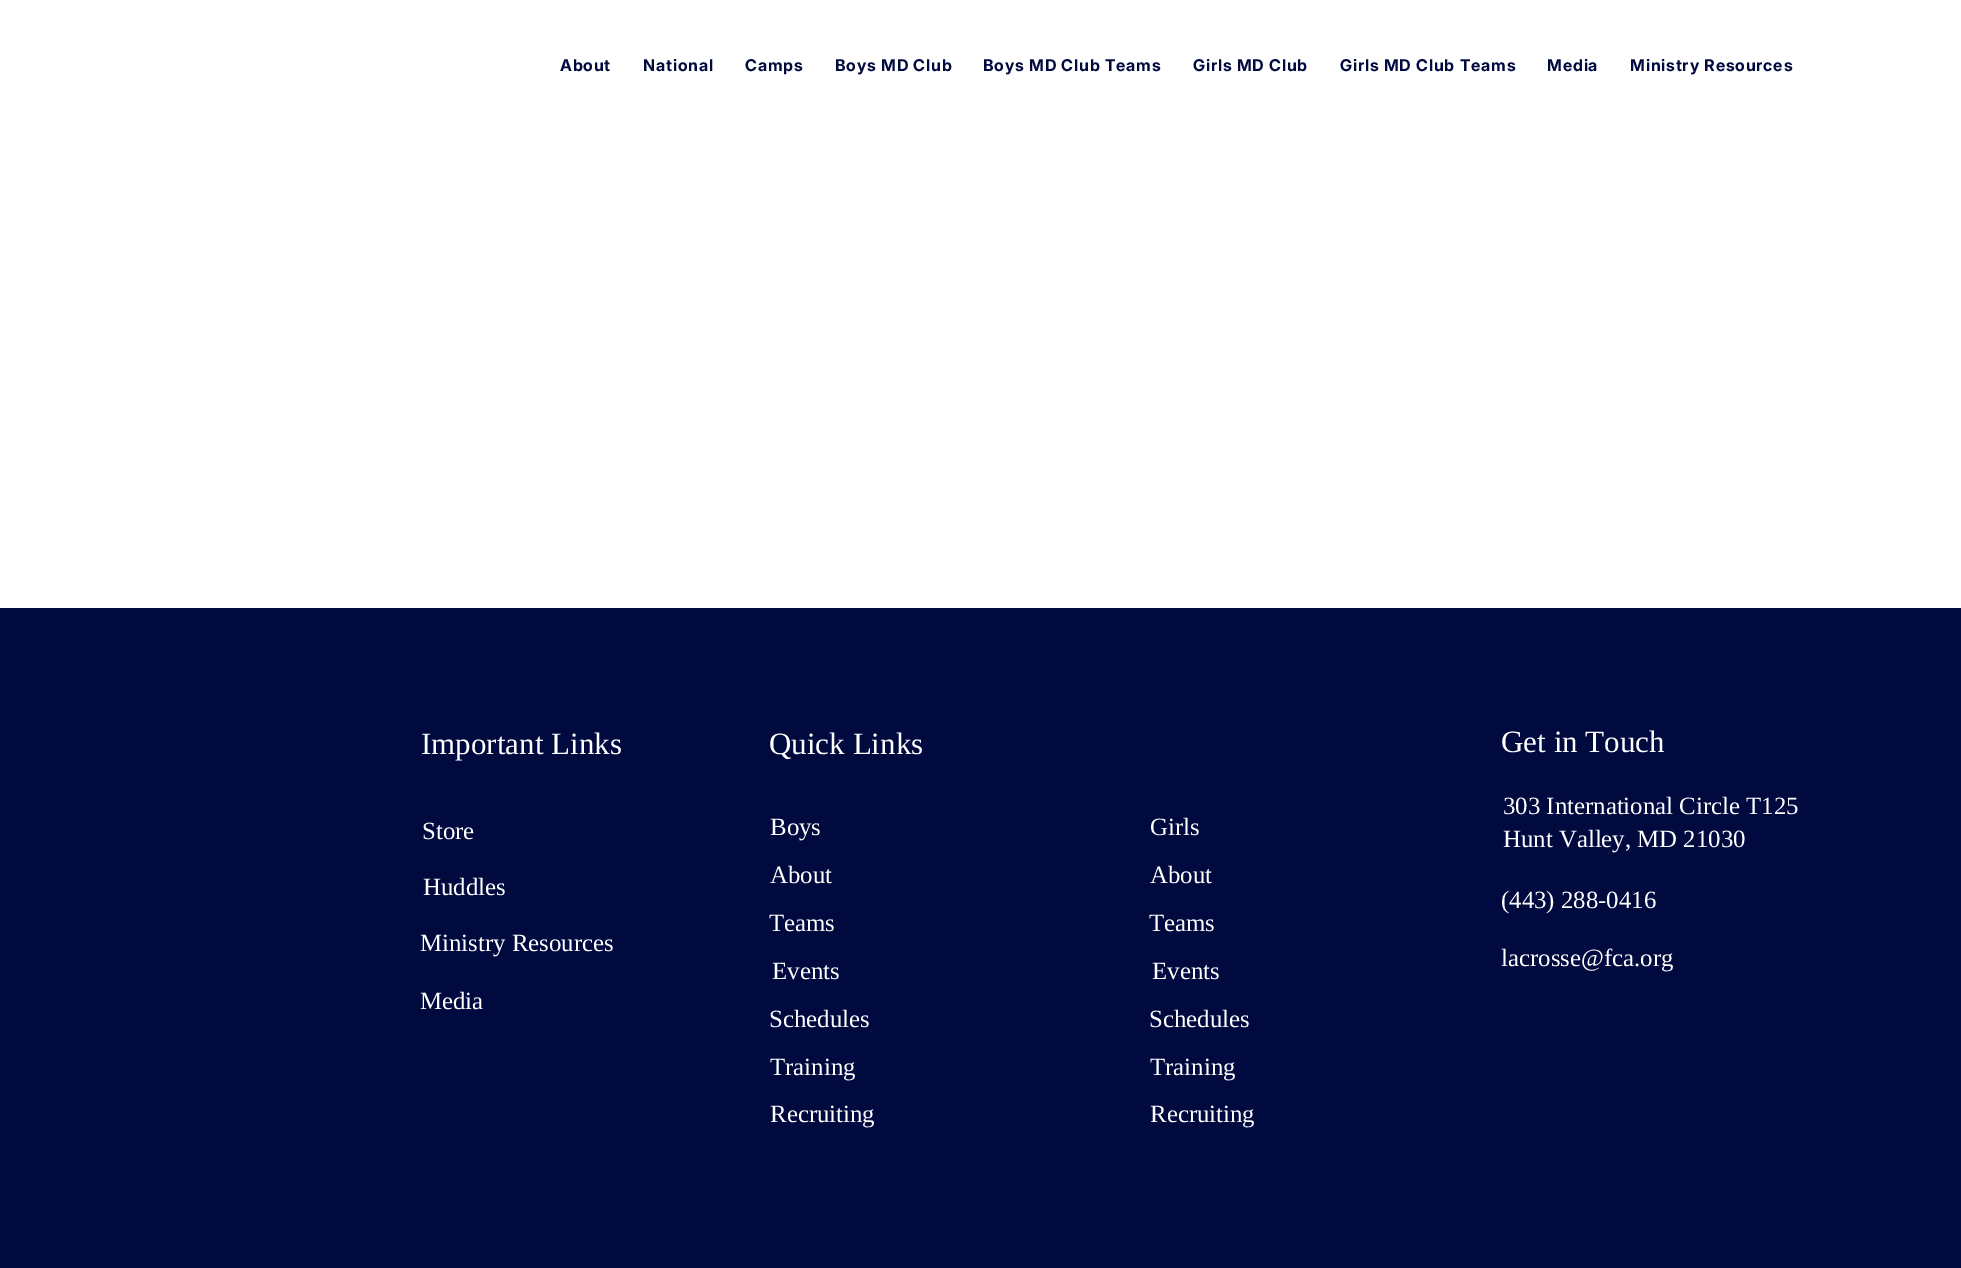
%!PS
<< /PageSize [1961 1268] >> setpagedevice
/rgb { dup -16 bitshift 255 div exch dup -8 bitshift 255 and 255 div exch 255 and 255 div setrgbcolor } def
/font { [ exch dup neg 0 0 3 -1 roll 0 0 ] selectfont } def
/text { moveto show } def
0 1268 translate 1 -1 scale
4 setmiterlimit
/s1 { /LiberationSerif-Regular 31 font 16#FFFFFF rgb } def
/s2 { /LiberationSerif-Regular 24.8 font 16#FFFFFF rgb } def
16#FFFFFF rgb
0 0 1961 1268 rectfill
/Inter-Bold 16.25 font
16#000A3F rgb
560 71 moveto 0.8 0 (About) ashow
643 71 moveto 0.8 0 (National) ashow
745 71 moveto 0.8 0 (Camps) ashow
835 71 moveto 0.8 0 (Boys MD Club) ashow
983 71 moveto 0.8 0 (Boys MD Club Teams) ashow
1193 71 moveto 0.8 0 (Girls MD Club) ashow
1340 71 moveto 0.8 0 (Girls MD Club Teams) ashow
1547 71 moveto 0.8 0 (Media) ashow
1630 71 moveto 0.8 0 (Ministry Resources) ashow
0 608 1961 660 rectfill
s1
(Important Links) 421 754 text
(Quick Links) 769 754 text
s2
(Store) 422 839 text
(Huddles) 423 895 text
(Ministry Resources) 420 951 text
(Media) 420 1009 text
(Boys) 770 835 text
(About) 770 883 text
(Teams) 769 931 text
(Events) 772 979 text
(Schedules) 769 1027 text
(Training) 770 1075 text
(Recruiting) 770 1122 text
(Girls) 1150 835 text
(About) 1150 883 text
(Teams) 1149 931 text
(Events) 1152 979 text
(Schedules) 1149 1027 text
(Training) 1150 1075 text
(Recruiting) 1150 1122 text
s1
(Get in Touch) 1501 752 text
s2
(303 International Circle T125) 1503 814 text
(Hunt Valley, MD 21030) 1503 847 text
(\(443\) 288-0416) 1501 908 text
(lacrosse@fca.org) 1501 966 text
showpage
